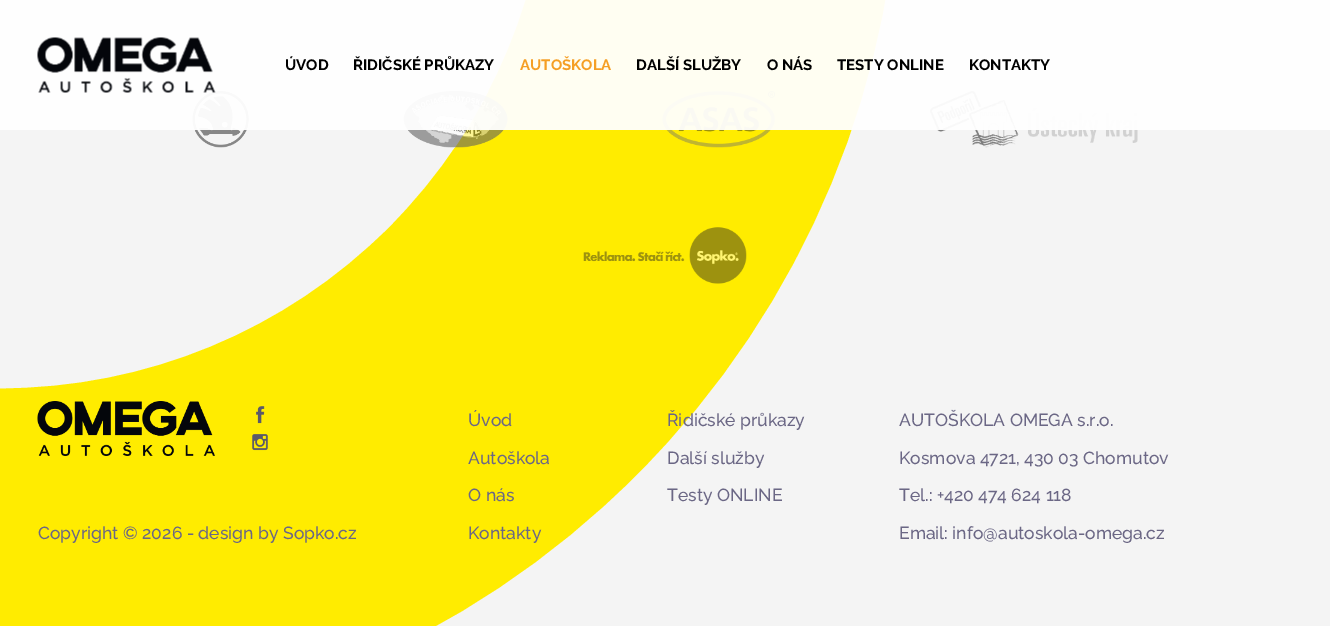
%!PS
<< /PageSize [1330 626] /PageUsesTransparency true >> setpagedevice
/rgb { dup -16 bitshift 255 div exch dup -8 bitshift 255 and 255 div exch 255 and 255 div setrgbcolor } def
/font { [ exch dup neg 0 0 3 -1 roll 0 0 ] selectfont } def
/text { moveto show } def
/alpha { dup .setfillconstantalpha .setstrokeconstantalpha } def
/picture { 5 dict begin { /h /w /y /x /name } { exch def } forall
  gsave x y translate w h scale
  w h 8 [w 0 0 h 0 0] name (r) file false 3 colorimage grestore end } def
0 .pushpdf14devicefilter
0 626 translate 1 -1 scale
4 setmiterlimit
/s1 { /Raleway-Bold 15 font 16#000000 rgb } def
/s2 { /Raleway-Bold 15 font 16#F59F25 rgb } def
/s3 { /Raleway-Medium 17.5 font 16#6B6785 rgb } def
16#F4F4F4 rgb
0 0 1330 626 rectfill
16#FFEC00 rgb
350 setlinewidth
725 -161.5 moveto 725 31 648.5 215.5 512.5 351.5 curveto 376.5 487.5 192.5 563.5 0 563.5 curveto -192.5 563.5 -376.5 487.5 -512.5 351.5 curveto -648.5 215.5 -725 31 -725 -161.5 curveto -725 -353.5 -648.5 -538 -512.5 -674 curveto -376.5 -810 -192.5 -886.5 0 -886.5 curveto stroke
(pic2.raw) 192 91 57 57 picture
(pic3.raw) 403 91 105 57 picture
(pic4.raw) 662 91 113 57 picture
(pic5.raw) 930 91 208 57 picture
0.95 alpha
16#FFFFFF rgb
0 0 1330 130 rectfill
1 alpha
(pic1.raw) 37 37 179 56 picture
s1
(ÚVOD) 285 70 text
(ŘIDIČSKÉ PRŮKAZY) 353 70 text
s2
(AUTOŠKOLA) 520 70 text
s1
(DALŠÍ SLUŽBY) 636 70 text
(O NÁS) 767 70 text
(TESTY ONLINE) 837 70 text
(KONTAKTY) 969 70 text
(pic6.raw) 583 227 164 57 picture
(pic7.raw) 37 401 178 55 picture
(pic8.raw) 256 406 9 18 picture
(pic9.raw) 252 434 16 17 picture
s3
(Copyright © 2026 - design by Sopko.cz) 38 539 text
(Úvod) 468 426 text
(Řidičské průkazy) 667 426 text
(Autoškola) 468 464 text
(Další služby) 667 464 text
(O nás) 468 501 text
(Testy ONLINE) 667 501 text
(Kontakty) 468 539 text
(AUTOŠKOLA OMEGA s.r.o.) 899 426 text
(Kosmova 4721, 430 03 Chomutov) 899 464 text
(Tel.: +420 474 624 118) 899 501 text
(Email: info@autoskola-omega.cz) 899 539 text
.poppdf14devicefilter showpage
